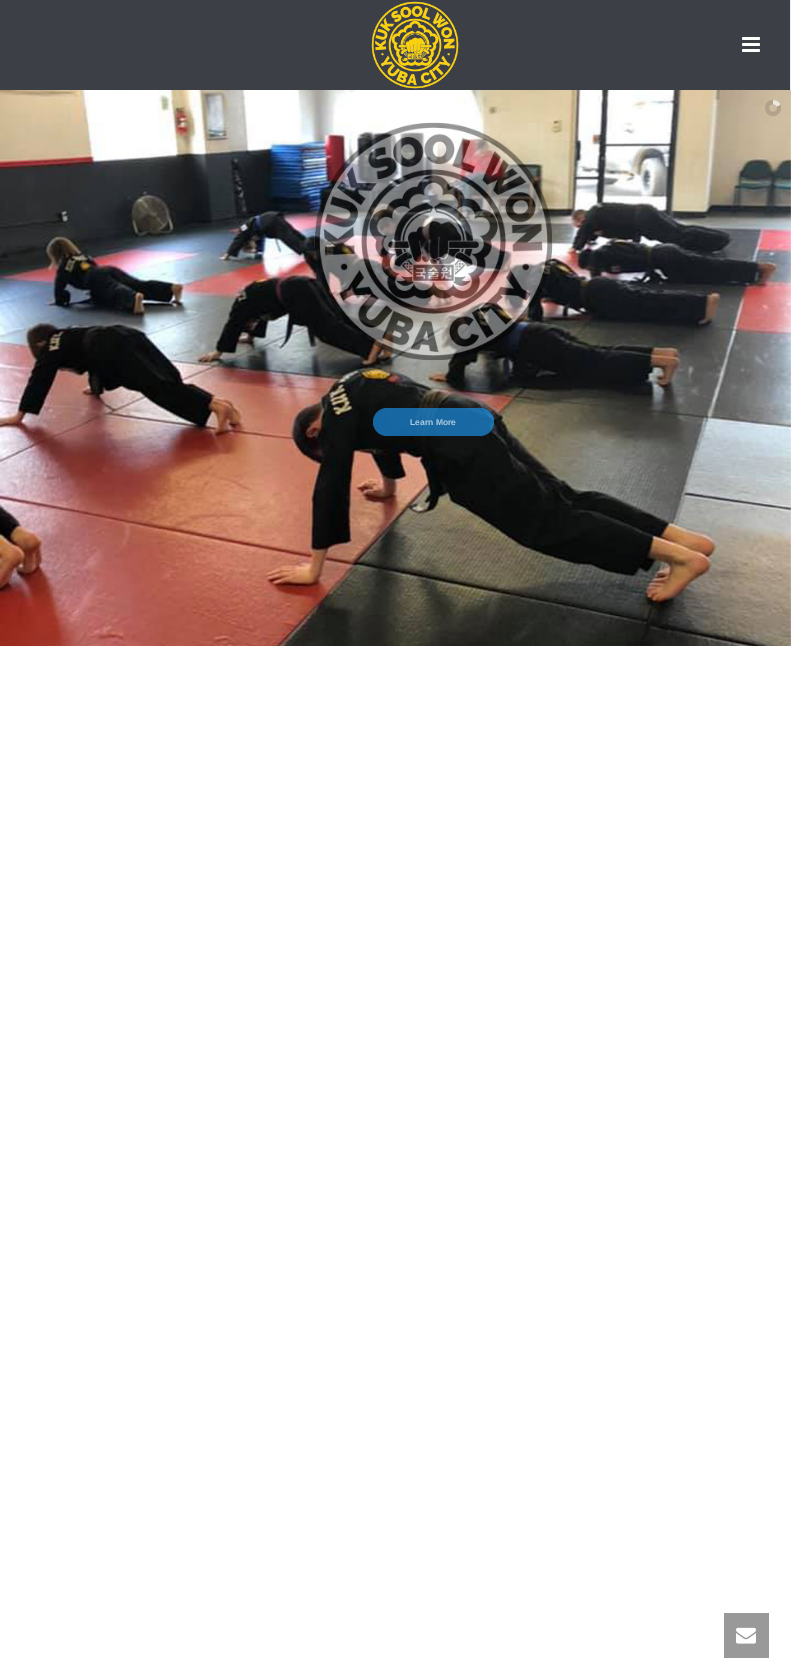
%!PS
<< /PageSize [791 1673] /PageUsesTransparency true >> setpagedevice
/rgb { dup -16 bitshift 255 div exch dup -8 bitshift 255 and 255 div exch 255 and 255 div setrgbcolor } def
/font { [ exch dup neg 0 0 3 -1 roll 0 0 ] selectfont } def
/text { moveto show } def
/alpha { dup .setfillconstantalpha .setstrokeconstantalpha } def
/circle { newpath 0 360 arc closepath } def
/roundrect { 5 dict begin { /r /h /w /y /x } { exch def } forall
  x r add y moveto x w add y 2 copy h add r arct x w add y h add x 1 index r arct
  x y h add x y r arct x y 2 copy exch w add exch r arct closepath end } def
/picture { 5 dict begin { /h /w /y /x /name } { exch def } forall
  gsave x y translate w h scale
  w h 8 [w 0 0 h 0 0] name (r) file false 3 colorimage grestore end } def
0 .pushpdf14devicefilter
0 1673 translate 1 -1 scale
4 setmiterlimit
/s1 { /LiberationSans-Bold 8.5 font 16#ABC8DD rgb } def
16#FFFFFF rgb
0 0 791 1673 rectfill
16#3C3F45 rgb
0 0 790 90 rectfill
16#EDEDED rgb
790 0 1 90 rectfill
(pic1.raw) 371 1 88 88 picture
16#FFFFFF rgb
742 37 18 3 1.5 roundrect fill
742 43 18 3 1.5 roundrect fill
742 49 18 3 1.5 roundrect fill
(pic2.raw) 0 90 791 556 picture
0.13 alpha
16#000000 rgb
4 setlinewidth
773 108 6 circle stroke
gsave
773 100 8 16 rectclip
776.5 97.5 moveto 780 104.5 lineto 766 111.5 lineto 762.5 104.5 lineto closepath clip newpath
1 alpha
16#EDE8DE rgb
778.5 105.5 moveto 782 112.5 771 117.5 767.5 110.5 curveto 764 103.5 775 98.5 778.5 105.5 curveto closepath stroke
grestore
1 alpha
(pic3.raw) 314 122 239 239 picture
0.63 alpha
16#1B9AF7 rgb
373 408 121 28 14 roundrect fill
1 alpha
s1
(Learn More) 410 425 text
16#999999 rgb
724 1613 45 45 rectfill
(pic4.raw) 736 1627 20 17 picture
.poppdf14devicefilter showpage
